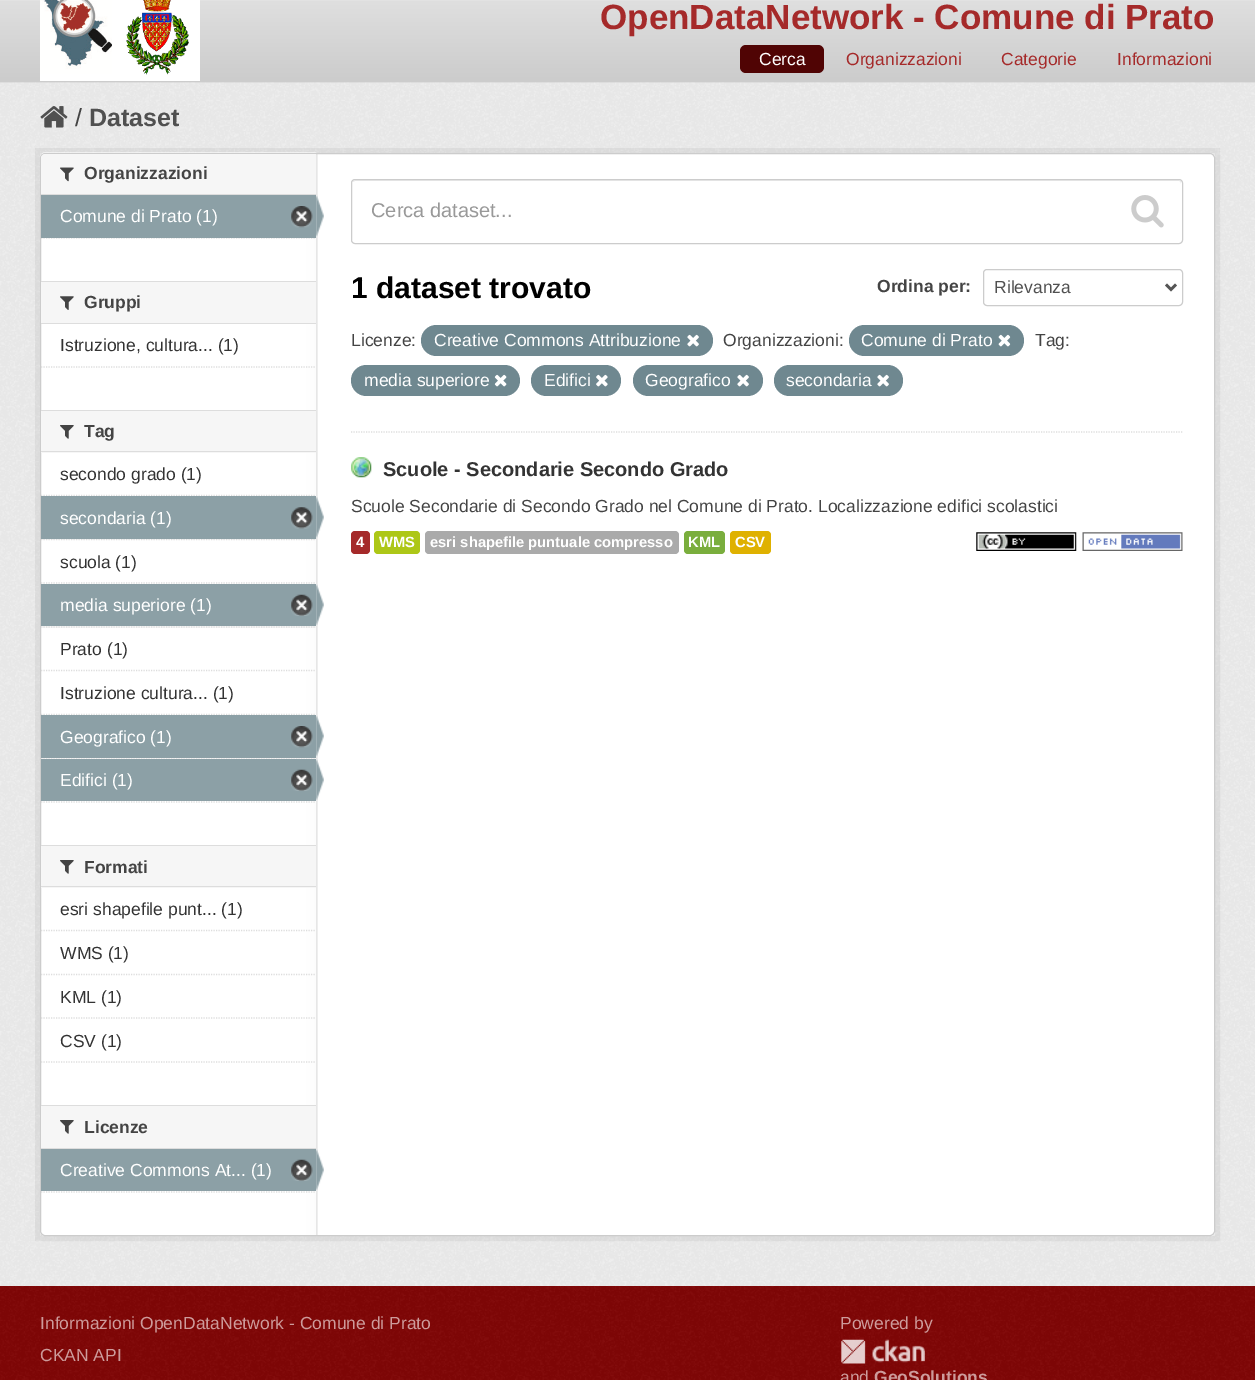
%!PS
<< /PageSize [1255 1380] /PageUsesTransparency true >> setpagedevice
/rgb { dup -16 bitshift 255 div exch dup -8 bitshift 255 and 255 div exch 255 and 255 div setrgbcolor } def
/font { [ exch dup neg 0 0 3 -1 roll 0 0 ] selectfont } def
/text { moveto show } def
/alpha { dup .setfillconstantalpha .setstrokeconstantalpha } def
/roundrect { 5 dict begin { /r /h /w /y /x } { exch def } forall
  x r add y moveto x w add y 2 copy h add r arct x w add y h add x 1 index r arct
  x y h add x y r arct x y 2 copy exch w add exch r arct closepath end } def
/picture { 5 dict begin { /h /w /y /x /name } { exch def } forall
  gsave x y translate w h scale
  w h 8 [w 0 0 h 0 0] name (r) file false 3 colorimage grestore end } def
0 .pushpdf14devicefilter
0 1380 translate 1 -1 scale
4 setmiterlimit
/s1 { /LiberationSans-Bold 35 font 16#A52A2A rgb } def
/s2 { /LiberationSans-Regular 17.5 font 16#FFFFFF rgb } def
/s3 { /LiberationSans-Regular 17.5 font 16#A52A2A rgb } def
/s4 { /LiberationSans-Regular 25 font 16#444444 rgb } def
/s5 { /LiberationSans-Bold 25 font 16#505050 rgb } def
/s6 { /LiberationSans-Bold 17.5 font 16#444444 rgb } def
/s7 { /LiberationSans-Regular 17.5 font 16#333333 rgb } def
/s8 { /LiberationSans-Regular 20 font 16#999999 rgb } def
/s9 { /LiberationSans-Bold 30 font 16#000000 rgb } def
/s10 { /LiberationSans-Regular 17.5 font 16#505050 rgb } def
/s11 { /LiberationSans-Regular 17.5 font 16#444444 rgb } def
/s12 { /LiberationSans-Bold 20 font 16#333333 rgb } def
/s13 { /LiberationSans-Bold 14.75 font 16#FFFFFF rgb } def
/s14 { /LiberationSans-Regular 17.5 font 16#CD9B9B rgb } def
/s15 { /LiberationSans-Bold 17.5 font 16#CD9B9B rgb } def
16#E2E2E2 rgb
0 0 1255 1380 rectfill
gsave 0 1 moveto 1255 1 lineto 1255 81 lineto 0 81 lineto closepath clip newpath
<< /ShadingType 2 /ColorSpace /DeviceRGB /Coords [628 -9 628 81] /Extend [true true] /Function << /FunctionType 2 /Domain [0 1] /C0 [0.886 0.886 0.886] /C1 [0.8 0.8 0.8] /N 1 >> >> shfill grestore
16#CCCCCC rgb
0 81 1255 1 rectfill
(pic1.raw) 40 0 160 81 picture
s1
(OpenDataNetwork - Comune di Prato) 600 29 text
16#500404 rgb
740 45 84 28 6 roundrect fill
s2
(Cerca) 759 65 text
s3
(Organizzazioni) 846 65 text
(Categorie) 1001 65 text
(Informazioni) 1117 65 text
16#EEEEEE rgb
0 83 1255 1203 rectfill
(pic2.raw) 0 82 1255 1204 picture
(pic3.raw) 40 106 28 22 picture
s4
(/) 75 126 text
s5
(Dataset) 89 126 text
0.05 alpha
16#000000 rgb
5 setlinewidth
37.5 150.5 1180 1088 rectstroke
1 alpha
16#FFFFFF rgb
40 153 1175 1083 5 roundrect fill
(pic4.raw) 41 152 277 1084 picture
16#CCCCCC rgb
1 setlinewidth
40.5 153.5 1174 1082 4.5 roundrect stroke
16#F6F6F6 rgb
45 154 moveto 316 154 lineto 316 195 lineto 41 195 lineto 41 158 lineto 41 156 43 154 45 154 curveto closepath fill
16#DDDDDD rgb
41 194 275 1 rectfill
(pic5.raw) 60 167 14 15 picture
s6
(Organizzazioni) 84 179 text
16#DDDDDD rgb
1.2 setlinewidth
[1.25 1.25] 0 setdash
41 238 moveto 316 238 lineto stroke
16#8CA0A6 rgb
41 195 275 43 rectfill
s2
(Comune di Prato \(1\)) 60 222 text
(pic6.raw) 291 206 22 22 picture
(pic7.raw) 316 195 8 42 picture
16#F6F6F6 rgb
41 282 275 41 rectfill
16#DDDDDD rgb
41 281 275 1 rectfill
41 323 275 1 rectfill
(pic8.raw) 60 296 14 14 picture
s6
(Gruppi) 84 308 text
s7
(Istruzione, cultura... \(1\)) 60 351 text
16#DDDDDD rgb
41 367 moveto 316 367 lineto stroke
16#F6F6F6 rgb
41 411 275 42 rectfill
16#DDDDDD rgb
41 410 275 1 rectfill
41 451 275 1 rectfill
(pic9.raw) 60 425 14 14 picture
s6
(Tag) 84 437 text
16#DDDDDD rgb
41 495.5 moveto 316 495.5 lineto stroke
s7
(secondo grado \(1\)) 60 480 text
16#F6F6F6 rgb
42 539 274 1 rectfill
16#DDDDDD rgb
41 539.5 moveto 316 539.5 lineto stroke
16#8CA0A6 rgb
41 496 275 43 rectfill
s2
(secondaria \(1\)) 60 524 text
(pic10.raw) 291 507 22 22 picture
(pic11.raw) 316 496 8 42 picture
16#DDDDDD rgb
41 583 moveto 316 583 lineto stroke
s7
(scuola \(1\)) 60 568 text
16#F6F6F6 rgb
41 626 275 2 rectfill
16#DDDDDD rgb
41 627 moveto 316 627 lineto stroke
16#8CA0A6 rgb
41 584 275 42 rectfill
s2
(media superiore \(1\)) 60 611 text
(pic12.raw) 291 594 22 22 picture
(pic13.raw) 316 584 8 42 picture
16#DDDDDD rgb
41 670.5 moveto 316 670.5 lineto stroke
s7
(Prato \(1\)) 60 655 text
16#DDDDDD rgb
41 714.5 moveto 316 714.5 lineto stroke
s7
(Istruzione cultura... \(1\)) 60 699 text
16#F6F6F6 rgb
41 758 275 1 rectfill
16#DDDDDD rgb
41 758 moveto 316 758 lineto stroke
16#8CA0A6 rgb
41 715 275 43 rectfill
s2
(Geografico \(1\)) 60 743 text
(pic6.raw) 291 726 22 22 picture
(pic7.raw) 316 715 8 42 picture
16#8CA0A6 rgb
41 759 275 42 rectfill
s2
(Edifici \(1\)) 60 786 text
(pic14.raw) 291 769 22 22 picture
(pic13.raw) 316 759 8 42 picture
16#DDDDDD rgb
41 802 moveto 316 802 lineto stroke
16#F6F6F6 rgb
41 846 275 42 rectfill
16#DDDDDD rgb
41 845 275 1 rectfill
41 886 275 1 rectfill
(pic9.raw) 60 860 14 14 picture
s6
(Formati) 84 873 text
16#DDDDDD rgb
41 930.5 moveto 316 930.5 lineto stroke
s7
(esri shapefile punt... \(1\)) 60 915 text
16#DDDDDD rgb
41 974.5 moveto 316 974.5 lineto stroke
s7
(WMS \(1\)) 60 959 text
16#DDDDDD rgb
41 1018 moveto 316 1018 lineto stroke
s7
(KML \(1\)) 60 1003 text
(CSV \(1\)) 60 1047 text
16#DDDDDD rgb
41 1062 moveto 316 1062 lineto stroke
16#F6F6F6 rgb
41 1106 275 42 rectfill
16#DDDDDD rgb
41 1105 275 1 rectfill
41 1148 275 1 rectfill
(pic9.raw) 60 1120 14 14 picture
s6
(Licenze) 84 1133 text
16#8CA0A6 rgb
41 1149 275 42 rectfill
s2
(Creative Commons At... \(1\)) 60 1176 text
(pic15.raw) 291 1159 22 22 picture
(pic16.raw) 316 1149 8 42 picture
16#DDDDDD rgb
41 1192 moveto 316 1192 lineto stroke
351 432 moveto 1182.5 432 lineto stroke
16#ECECEC rgb
355 181 moveto 1179 181 lineto 1180 181 1181 182 1181 184 curveto 1181 182 lineto 1181 181 1180 180 1178 180 curveto 356 180 lineto 354 180 353 181 353 182 curveto closepath fill
16#CCCCCC rgb
1 setlinewidth
[] 0 setdash
351.5 179.5 831 64 3.5 roundrect stroke
s8
(Cerca dataset...) 371 217 text
(pic17.raw) 1131 195 33 33 picture
s9
(1 dataset trovato) 351 298 text
s6
(Ordina per:) 877 292 text
16#CCCCCC rgb
983.5 269.5 199 36 3.5 roundrect stroke
16#555555 rgb
2.5 setlinewidth
1166 284.5 moveto 1171 289.5 lineto 1176 284.5 lineto stroke
s10
(Rilevanza) 994 293 text
s11
(Licenze:) 351 346 text
16#6F8890 rgb
421 325 292 31 15.5 roundrect fill
s2
(Creative Commons Attribuzione) 434 346 text
(pic18.raw) 687 334 12 13 picture
s11
(Organizzazioni:) 723 346 text
16#6F8890 rgb
849 325 175 31 15.5 roundrect fill
s2
(Comune di Prato) 861 346 text
(pic19.raw) 998 334 13 13 picture
s11
(Tag:) 1035 346 text
16#6F8890 rgb
351 365 169 31 15.5 roundrect fill
s2
(media superiore) 364 386 text
(pic20.raw) 494 374 13 13 picture
16#6F8890 rgb
531 365 90 31 15.5 roundrect fill
s2
(Edifici) 544 386 text
(pic21.raw) 596 374 12 13 picture
16#6F8890 rgb
633 365 130 31 15.5 roundrect fill
s2
(Geografico) 645 386 text
(pic18.raw) 737 374 12 13 picture
16#6F8890 rgb
774 365 129 31 15.5 roundrect fill
s2
(secondaria) 786 386 text
(pic18.raw) 877 374 12 13 picture
(pic22.raw) 351 457 21 21 picture
s12
(Scuole - Secondarie Secondo Grado) 383 476 text
s11
(Scuole Secondarie di Secondo Grado nel Comune di Prato. Localizzazione edifici scolastici) 351 512 text
16#A52A2A rgb
351 531 19 23 4 roundrect fill
s13
(4) 356 547 text
16#ADC717 rgb
374 531 46 23 4 roundrect fill
s13
(WMS) 379 547 text
16#AAAAAA rgb
425 531 254 23 4 roundrect fill
s13
(esri shapefile puntuale compresso) 430 547 text
16#7AAE3D rgb
684 531 41 23 4 roundrect fill
s13
(KML) 688 547 text
16#DFB100 rgb
730 531 41 23 4 roundrect fill
s13
(CSV) 735 547 text
(pic23.raw) 976 532 101 19 picture
(pic24.raw) 1082 532 101 19 picture
16#810606 rgb
0 1286 1255 94 rectfill
(pic25.raw) 0 1286 1255 94 picture
s14
(Informazioni OpenDataNetwork - Comune di Prato) 40 1329 text
(CKAN API) 40 1361 text
(Powered by) 840 1329 text
(pic26.raw) 841 1339 84 25 picture
(and) 840 1383 text
s15
(GeoSolutions) 874 1383 text
.poppdf14devicefilter showpage
